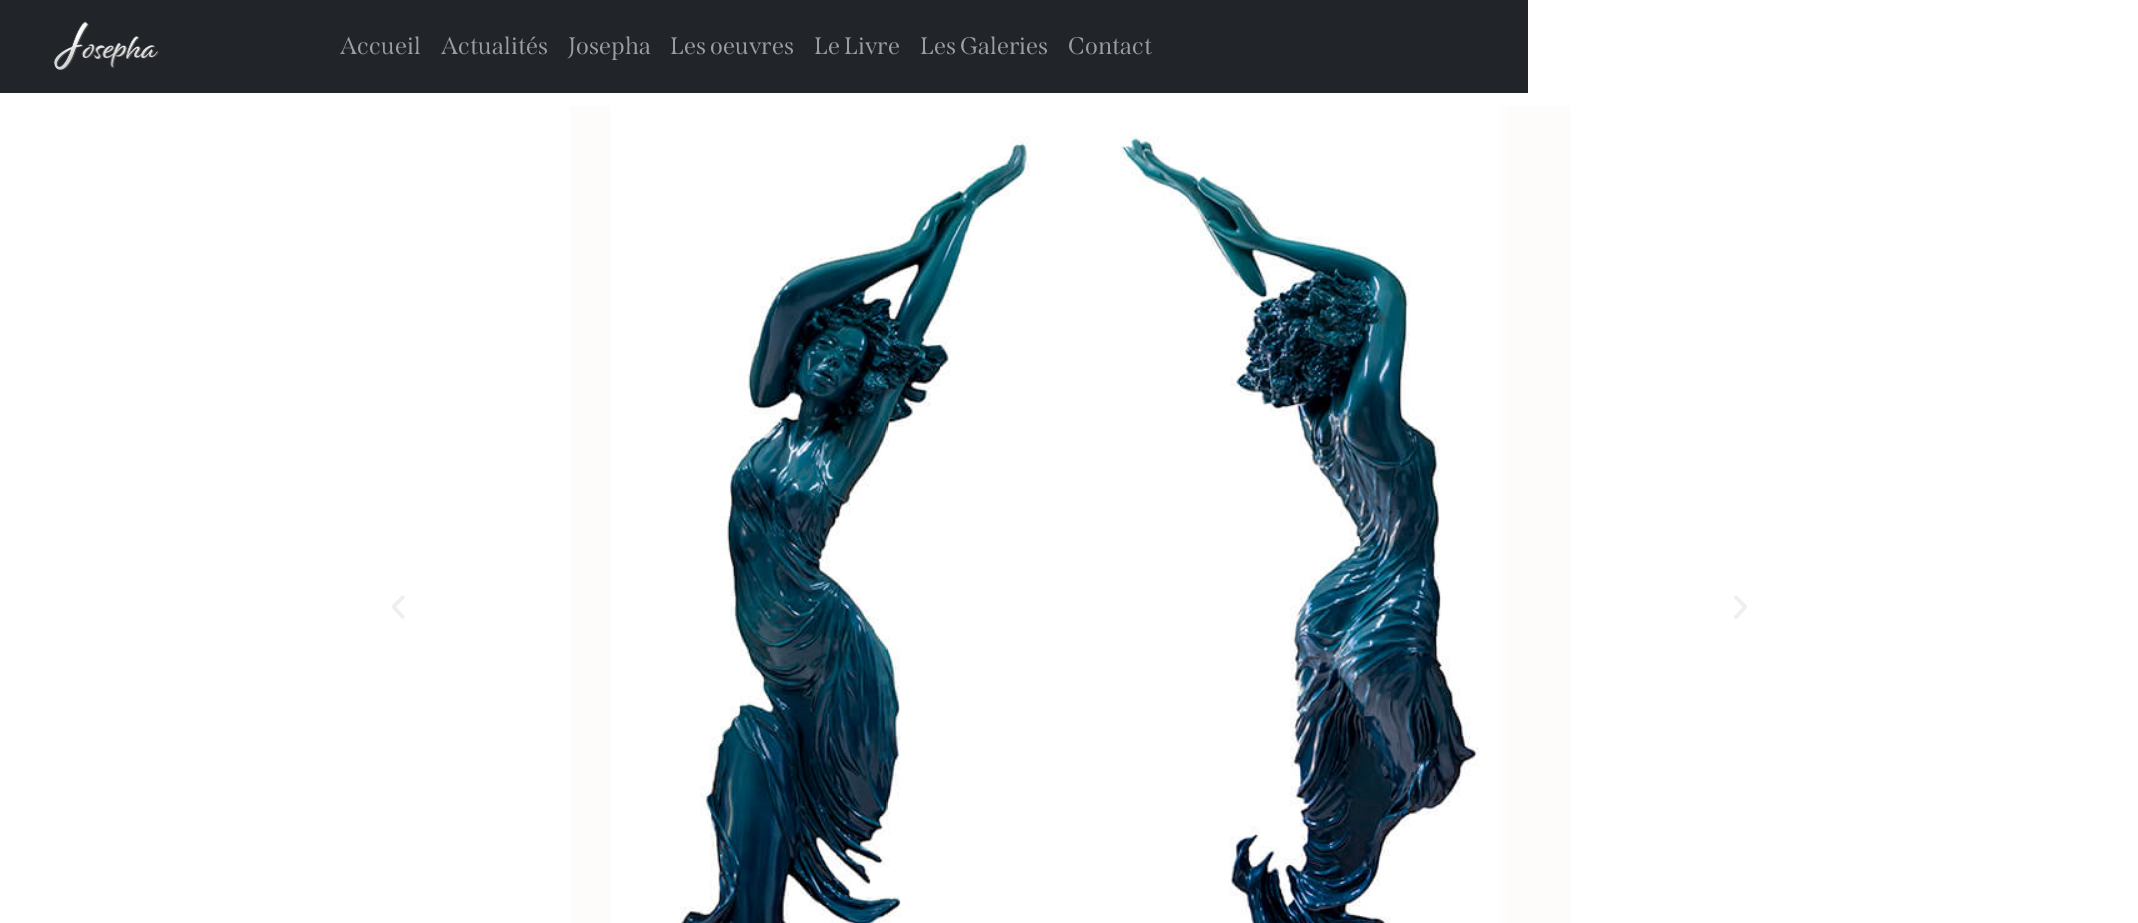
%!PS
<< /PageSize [2138 923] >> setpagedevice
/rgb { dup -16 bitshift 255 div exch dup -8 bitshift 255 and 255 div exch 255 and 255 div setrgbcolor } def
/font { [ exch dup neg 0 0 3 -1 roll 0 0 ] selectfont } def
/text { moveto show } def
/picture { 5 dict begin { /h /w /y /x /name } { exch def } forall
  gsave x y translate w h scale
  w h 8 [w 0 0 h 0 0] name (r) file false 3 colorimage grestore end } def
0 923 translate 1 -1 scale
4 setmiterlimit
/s1 { /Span-Regular 24 font 16#9B9D9F rgb } def
16#FFFFFF rgb
0 0 2138 923 rectfill
16#212529 rgb
0 0 1528 93 rectfill
(pic1.raw) 53 21 106 50 picture
s1
(Accueil) 340 54 text
(Actualités) 441 54 text
(Josepha) 568 54 text
(Les oeuvres) 670 54 text
(Le Livre) 814 54 text
(Les Galeries) 920 54 text
(Contact) 1068 54 text
(pic2.raw) 391 595 14 24 picture
(pic3.raw) 570 106 1000 817 picture
(pic4.raw) 1734 595 13 24 picture
showpage
